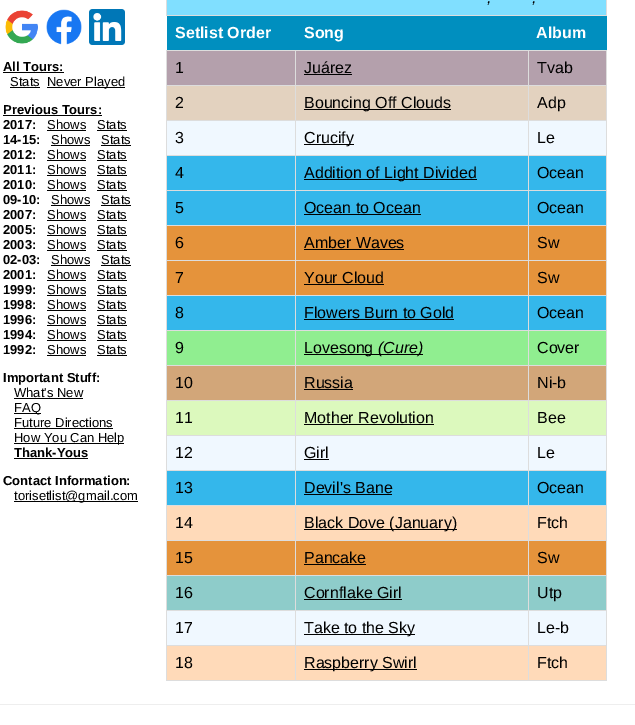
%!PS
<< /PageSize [635 725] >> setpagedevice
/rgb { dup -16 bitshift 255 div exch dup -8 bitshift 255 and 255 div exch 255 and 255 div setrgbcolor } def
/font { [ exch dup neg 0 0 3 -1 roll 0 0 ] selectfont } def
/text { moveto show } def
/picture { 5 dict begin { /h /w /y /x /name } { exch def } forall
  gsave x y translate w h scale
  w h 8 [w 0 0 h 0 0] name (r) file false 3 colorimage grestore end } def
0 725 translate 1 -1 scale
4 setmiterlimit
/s1 { /LiberationSans-Bold 13 font 16#000000 rgb } def
/s2 { /LiberationSans-Regular 13 font 16#000000 rgb } def
/s3 { /LiberationSans-Italic 16 font 16#000000 rgb } def
/s4 { /LiberationSans-Bold 16 font 16#FFFFFF rgb } def
/s5 { /LiberationSans-Regular 16 font 16#000000 rgb } def
16#FFFFFF rgb
0 0 635 725 rectfill
(pic1.raw) 5 10 33 34 picture
(pic2.raw) 46 9 36 36 picture
(pic3.raw) 89 9 36 36 picture
s1
(All Tours:) 3 71 text
3 72 61 1 rectfill
s2
(Stats) 10 86 text
10 87 30 1 rectfill
47 87 78 1 rectfill
(Never Played) 47 86 text
s1
(Previous Tours:) 3 114 text
3 115 99 1 rectfill
(2017:) 3 129 text
s2
(Shows) 47 129 text
47 130 39 1 rectfill
(Stats) 97 129 text
97 130 30 1 rectfill
s1
(14-15:) 3 144 text
s2
(Shows) 51 144 text
51 145 39 1 rectfill
(Stats) 101 144 text
101 145 30 1 rectfill
s1
(2012:) 3 159 text
s2
(Shows) 47 159 text
47 160 39 1 rectfill
(Stats) 97 159 text
97 160 30 1 rectfill
s1
(2011:) 3 174 text
s2
(Shows) 47 174 text
47 175 39 1 rectfill
(Stats) 97 174 text
97 175 30 1 rectfill
s1
(2010:) 3 189 text
s2
(Shows) 47 189 text
47 190 39 1 rectfill
(Stats) 97 189 text
97 190 30 1 rectfill
s1
(09-10:) 3 204 text
s2
(Shows) 51 204 text
51 205 39 1 rectfill
(Stats) 101 204 text
101 205 30 1 rectfill
s1
(2007:) 3 219 text
s2
(Shows) 47 219 text
47 220 39 1 rectfill
(Stats) 97 219 text
97 220 30 1 rectfill
s1
(2005:) 3 234 text
s2
(Shows) 47 234 text
47 235 39 1 rectfill
(Stats) 97 234 text
97 235 30 1 rectfill
s1
(2003:) 3 249 text
s2
(Shows) 47 249 text
47 250 39 1 rectfill
(Stats) 97 249 text
97 250 30 1 rectfill
s1
(02-03:) 3 264 text
s2
(Shows) 51 264 text
51 265 39 1 rectfill
(Stats) 101 264 text
101 265 30 1 rectfill
s1
(2001:) 3 279 text
s2
(Shows) 47 279 text
47 280 39 1 rectfill
(Stats) 97 279 text
97 280 30 1 rectfill
s1
(1999:) 3 294 text
s2
(Shows) 47 294 text
47 295 39 1 rectfill
(Stats) 97 294 text
97 295 30 1 rectfill
s1
(1998:) 3 309 text
s2
(Shows) 47 309 text
47 310 39 1 rectfill
(Stats) 97 309 text
97 310 30 1 rectfill
s1
(1996:) 3 324 text
s2
(Shows) 47 324 text
47 325 39 1 rectfill
(Stats) 97 324 text
97 325 30 1 rectfill
s1
(1994:) 3 339 text
s2
(Shows) 47 339 text
47 340 39 1 rectfill
(Stats) 97 339 text
97 340 30 1 rectfill
s1
(1992:) 3 354 text
s2
(Shows) 47 354 text
47 355 39 1 rectfill
(Stats) 97 354 text
97 355 30 1 rectfill
s1
(Important Stuff:) 3 382 text
s2
(What's New) 14 397 text
14 398 69 1 rectfill
14 413 27 1 rectfill
(FAQ) 14 412 text
(Future Directions) 14 427 text
14 428 99 1 rectfill
14 443 110 1 rectfill
(How You Can Help) 14 442 text
s1
(Thank-Yous) 14 457 text
14 458 74 1 rectfill
(Contact Information:) 3 485 text
14 501 124 1 rectfill
s2
(torisetlist@gmail.com) 14 500 text
16#80DFFF rgb
167 0 439 15 rectfill
16#DDDDDD rgb
606 0 1 16 rectfill
166 15 441 1 rectfill
166 0 1 16 rectfill
s3
(,) 487 3 text
(,) 532 3 text
16#008FBF rgb
167 16 440 34 rectfill
s4
(Setlist Order) 175 38 text
(Song) 304 38 text
(Album) 536 38 text
16#B4A0AC rgb
167 51 439 34 rectfill
16#DDDDDD rgb
528 50 79 1 rectfill
528 85 79 1 rectfill
16#E3D2BF rgb
167 86 439 34 rectfill
16#DDDDDD rgb
528 120 79 1 rectfill
16#F0F8FF rgb
167 121 439 34 rectfill
16#DDDDDD rgb
528 155 79 1 rectfill
16#34B7EB rgb
167 156 439 34 rectfill
16#DDDDDD rgb
528 190 79 1 rectfill
16#34B7EB rgb
167 191 439 34 rectfill
16#DDDDDD rgb
528 225 79 1 rectfill
16#E5933B rgb
167 226 439 34 rectfill
16#DDDDDD rgb
528 260 79 1 rectfill
16#E5933B rgb
167 261 439 34 rectfill
16#DDDDDD rgb
528 295 79 1 rectfill
16#34B7EB rgb
167 296 439 34 rectfill
16#DDDDDD rgb
528 330 79 1 rectfill
16#90EE90 rgb
167 331 439 34 rectfill
16#DDDDDD rgb
528 365 79 1 rectfill
16#D2A679 rgb
167 366 439 34 rectfill
16#DDDDDD rgb
528 400 79 1 rectfill
16#DCF9BD rgb
167 401 439 34 rectfill
16#DDDDDD rgb
528 435 79 1 rectfill
16#F0F8FF rgb
167 436 439 34 rectfill
16#DDDDDD rgb
528 470 79 1 rectfill
16#34B7EB rgb
167 471 439 34 rectfill
16#DDDDDD rgb
528 505 79 1 rectfill
16#FFDAB9 rgb
167 506 439 34 rectfill
16#DDDDDD rgb
528 540 79 1 rectfill
16#E5933B rgb
167 541 439 34 rectfill
16#DDDDDD rgb
528 575 79 1 rectfill
16#8ECCCA rgb
167 576 439 34 rectfill
16#DDDDDD rgb
528 610 79 1 rectfill
16#F0F8FF rgb
167 611 439 34 rectfill
16#DDDDDD rgb
528 645 79 1 rectfill
16#FFDAB9 rgb
167 646 439 34 rectfill
16#DDDDDD rgb
606 645 1 36 rectfill
528 680 79 1 rectfill
528 645 1 36 rectfill
295 645 234 1 rectfill
528 610 1 36 rectfill
295 610 234 1 rectfill
528 575 1 36 rectfill
295 575 234 1 rectfill
528 540 1 36 rectfill
295 540 234 1 rectfill
528 505 1 36 rectfill
295 505 234 1 rectfill
528 470 1 36 rectfill
295 470 234 1 rectfill
528 435 1 36 rectfill
295 435 234 1 rectfill
528 400 1 36 rectfill
295 400 234 1 rectfill
528 365 1 36 rectfill
295 365 234 1 rectfill
528 330 1 36 rectfill
295 330 234 1 rectfill
528 295 1 36 rectfill
295 295 234 1 rectfill
528 260 1 36 rectfill
295 260 234 1 rectfill
528 225 1 36 rectfill
295 225 234 1 rectfill
528 190 1 36 rectfill
295 190 234 1 rectfill
528 155 1 36 rectfill
295 155 234 1 rectfill
528 120 1 36 rectfill
295 120 234 1 rectfill
528 85 1 36 rectfill
295 85 234 1 rectfill
528 50 1 36 rectfill
295 50 234 1 rectfill
295 680 234 1 rectfill
295 645 1 36 rectfill
166 645 130 1 rectfill
295 610 1 36 rectfill
166 610 130 1 rectfill
295 575 1 36 rectfill
166 575 130 1 rectfill
295 540 1 36 rectfill
166 540 130 1 rectfill
295 505 1 36 rectfill
166 505 130 1 rectfill
295 470 1 36 rectfill
166 470 130 1 rectfill
295 435 1 36 rectfill
166 435 130 1 rectfill
295 400 1 36 rectfill
166 400 130 1 rectfill
295 365 1 36 rectfill
166 365 130 1 rectfill
295 330 1 36 rectfill
166 330 130 1 rectfill
295 295 1 36 rectfill
166 295 130 1 rectfill
295 260 1 36 rectfill
166 260 130 1 rectfill
295 225 1 36 rectfill
166 225 130 1 rectfill
295 190 1 36 rectfill
166 190 130 1 rectfill
295 155 1 36 rectfill
166 155 130 1 rectfill
295 120 1 36 rectfill
166 120 130 1 rectfill
295 85 1 36 rectfill
166 85 130 1 rectfill
295 50 1 36 rectfill
166 50 130 1 rectfill
166 680 130 1 rectfill
166 645 1 36 rectfill
166 610 1 36 rectfill
166 575 1 36 rectfill
166 540 1 36 rectfill
166 505 1 36 rectfill
166 470 1 36 rectfill
166 435 1 36 rectfill
166 400 1 36 rectfill
166 365 1 36 rectfill
166 330 1 36 rectfill
166 295 1 36 rectfill
166 260 1 36 rectfill
166 225 1 36 rectfill
166 190 1 36 rectfill
166 155 1 36 rectfill
166 120 1 36 rectfill
166 85 1 36 rectfill
166 50 1 36 rectfill
s5
(1) 175 73 text
(Juárez) 304 73 text
304 74 48 1 rectfill
16#DDDDDD rgb
606 610 1 36 rectfill
606 575 1 36 rectfill
606 540 1 36 rectfill
606 505 1 36 rectfill
606 470 1 36 rectfill
606 435 1 36 rectfill
606 400 1 36 rectfill
606 365 1 36 rectfill
606 330 1 36 rectfill
606 295 1 36 rectfill
606 260 1 36 rectfill
606 225 1 36 rectfill
606 190 1 36 rectfill
606 155 1 36 rectfill
606 120 1 36 rectfill
606 85 1 36 rectfill
606 50 1 36 rectfill
s5
(Tvab) 537 73 text
(2) 175 108 text
304 109 147 1 rectfill
(Bouncing Off Clouds) 304 108 text
(Adp) 537 108 text
(3) 175 143 text
304 144 50 1 rectfill
(Crucify) 304 143 text
(Le) 537 143 text
(4) 175 178 text
304 179 173 1 rectfill
(Addition of Light Divided) 304 178 text
(Ocean) 537 178 text
(5) 175 213 text
(Ocean to Ocean) 304 213 text
304 214 117 1 rectfill
(Ocean) 537 213 text
(6) 175 248 text
(Amber Waves) 304 248 text
304 249 100 1 rectfill
(Sw) 537 248 text
(7) 175 283 text
(Your Cloud) 304 283 text
304 284 80 1 rectfill
(Sw) 537 283 text
(8) 175 318 text
(Flowers Burn to Gold) 304 318 text
304 319 150 1 rectfill
(Ocean) 537 318 text
(9) 175 353 text
304 354 119 1 rectfill
(Lovesong) 304 353 text
s3
(\(Cure\)) 378 353 text
s5
(Cover) 537 353 text
(10) 175 388 text
(Russia) 304 388 text
304 389 49 1 rectfill
(Ni-b) 537 388 text
(11) 175 423 text
(Mother Revolution) 304 423 text
304 424 130 1 rectfill
(Bee) 537 423 text
(12) 175 458 text
(Girl) 304 458 text
304 459 25 1 rectfill
(Le) 537 458 text
(13) 175 493 text
(Devil's Bane) 304 493 text
304 494 88 1 rectfill
(Ocean) 537 493 text
(14) 175 528 text
304 529 153 1 rectfill
(Black Dove \(January\)) 304 528 text
(Ftch) 537 528 text
(15) 175 563 text
(Pancake) 304 563 text
304 564 62 1 rectfill
(Sw) 537 563 text
(16) 175 598 text
(Cornflake Girl) 304 598 text
304 599 98 1 rectfill
(Utp) 537 598 text
(17) 175 633 text
304 634 111 1 rectfill
(Take to the Sky) 304 633 text
(Le-b) 537 633 text
(18) 175 668 text
304 669 113 1 rectfill
(Raspberry Swirl) 304 668 text
(Ftch) 537 668 text
16#EEEEEE rgb
0 704 635 1 rectfill
showpage
